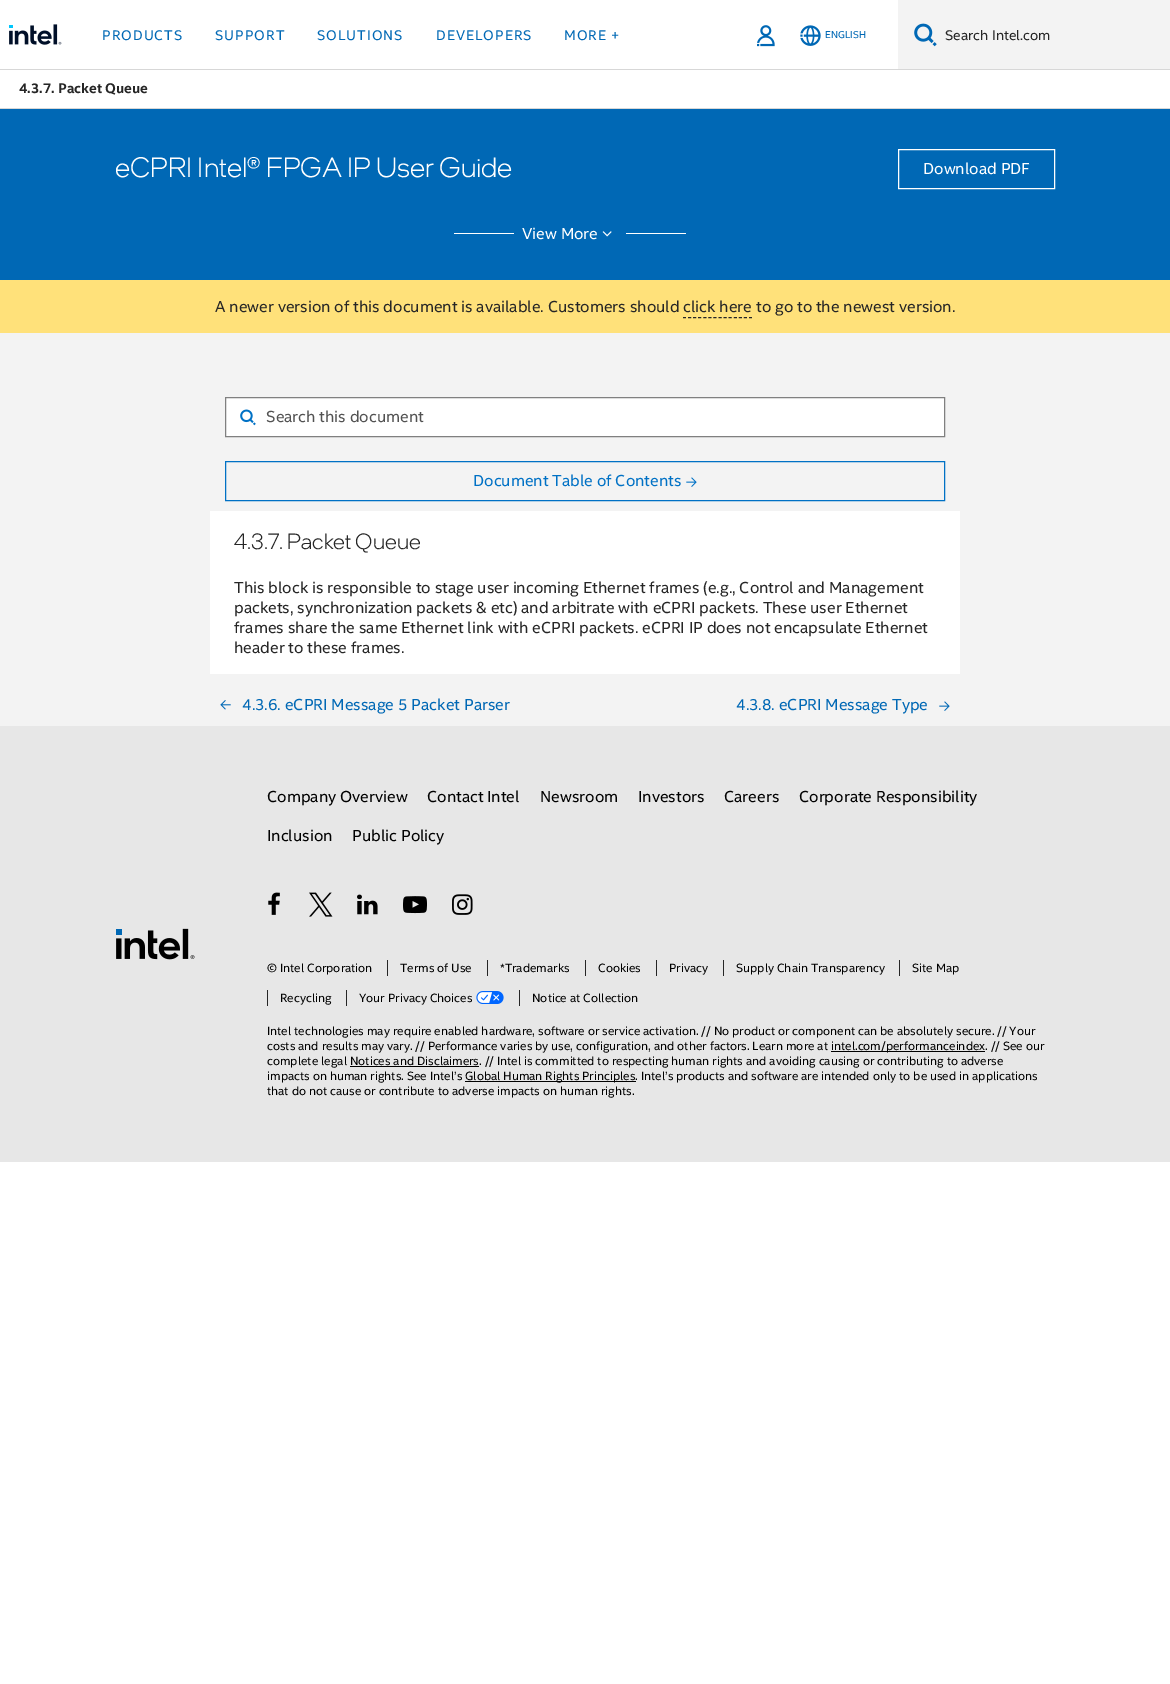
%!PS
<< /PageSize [1170 1684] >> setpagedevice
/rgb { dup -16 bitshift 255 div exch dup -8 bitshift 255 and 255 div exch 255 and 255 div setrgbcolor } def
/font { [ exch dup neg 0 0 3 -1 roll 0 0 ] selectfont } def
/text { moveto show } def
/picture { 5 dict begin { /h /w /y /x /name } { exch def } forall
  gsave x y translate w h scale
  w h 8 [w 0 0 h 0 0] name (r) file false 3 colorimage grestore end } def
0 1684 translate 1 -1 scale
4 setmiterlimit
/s1 { /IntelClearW-Regular 10 font 16#0068B5 rgb } def
/s2 { /IntelClearW-Regular 14 font 16#262626 rgb } def
/s3 { /IntelClearW-Bold 14 font 16#262626 rgb } def
/s4 { /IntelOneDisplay-Light 28 font 16#FFFFFF rgb } def
/s5 { /IntelClearW-Regular 16 font 16#FFFFFF rgb } def
/s6 { /IntelClearW-Regular 16 font 16#262626 rgb } def
/s7 { /IntelClearW-Regular 16 font 16#525252 rgb } def
/s8 { /IntelClearW-Regular 16 font 16#0071C5 rgb } def
/s9 { /IntelOneDisplay-Light 22 font 16#262626 rgb } def
/s10 { /IntelClearW-Regular 16 font 16#0068B5 rgb } def
/s11 { /IntelClearW-Regular 16 font 16#000000 rgb } def
/s12 { /IntelClearW-Regular 12 font 16#000000 rgb } def
16#FFFFFF rgb
0 0 1170 1684 rectfill
16#D7D7D7 rgb
0 69 1170 1 rectfill
(pic1.raw) 9 24 53 21 picture
/IntelClearW-Regular 14 font
16#0068B5 rgb
102 40 moveto 1 0 (PRODUCTS) ashow
215 40 moveto 1 0 (SUPPORT) ashow
317 40 moveto 1 0 (SOLUTIONS) ashow
436 40 moveto 1 0 (DEVELOPERS) ashow
564 40 moveto 1 0 (MORE +) ashow
(pic2.raw) 757 25 18 22 picture
(pic3.raw) 800 25 21 21 picture
s1
(ENGLISH) 825 38 text
16#F3F3F3 rgb
898 0 272 69 rectfill
(pic4.raw) 914 23 23 24 picture
s2
(Search Intel.com) 945 40 text
16#D7D7D7 rgb
0 108 1170 1 rectfill
s3
(4.3.7. Packet Queue) 19 93 text
16#0068B5 rgb
0 109 1170 171 rectfill
s4
(eCPRI Intel® FPGA IP User Guide) 115 177 text
898.5 149.5 156 39 rectstroke
s5
(Download PDF) 923 174 text
454 233 60 1 rectfill
(View More) 522 239 text
(pic5.raw) 602 231 10 6 picture
626 233 60 1 rectfill
16#FFE17A rgb
0 280 1170 53 rectfill
s6
(A newer version of this document is available. Customers should click here to go to the newest version.) 215 312 text
[3 2.08] 0 setdash
683 317.5 moveto 752 317.5 lineto stroke
16#F3F3F3 rgb
0 333 1170 393 rectfill
16#FFFFFF rgb
225.5 397.5 moveto 944.5 397.5 lineto 944.5 436.5 lineto 225.5 436.5 lineto closepath gsave fill grestore
16#808080 rgb
[] 0 setdash
stroke
(pic6.raw) 240 409 16 17 picture
s7
(Search this document) 266 422 text
16#0071C5 rgb
225.5 461.5 719 39 rectstroke
(Document Table of Contents) 473 486 text
(pic7.raw) 686 477 11 10 picture
16#FFFFFF rgb
210 511 750 163 rectfill
s9
(4.3.7. Packet Queue) 234 549 text
s6
(This block is responsible to stage user incoming Ethernet frames \(e.g., Control and Management) 234 593 text
(packets, synchronization packets & etc\) and arbitrate with eCPRI packets. These user Ethernet) 234 613 text
(frames share the same Ethernet link with eCPRI packets. eCPRI IP does not encapsulate Ethernet) 234 633 text
(header to these frames.) 234 653 text
(pic8.raw) 220 700 11 10 picture
s10
(4.3.6. eCPRI Message 5 Packet Parser) 242 710 text
(4.3.8. eCPRI Message Type) 736 710 text
(pic9.raw) 939 701 11 10 picture
16#E7E7E7 rgb
0 726 1170 436 rectfill
(pic10.raw) 116 928 79 32 picture
s11
(Company Overview) 267 802 text
(Contact Intel) 427 802 text
(Newsroom) 540 802 text
(Investors) 638 802 text
(Careers) 724 802 text
(Corporate Responsibility) 799 802 text
(Inclusion) 267 841 text
(Public Policy) 352 841 text
(pic11.raw) 268 892 12 23 picture
(pic12.raw) 309 892 24 25 picture
(pic13.raw) 357 894 21 21 picture
(pic14.raw) 403 896 24 18 picture
(pic15.raw) 452 894 21 21 picture
s12
(© Intel Corporation) 267 972 text
(Terms of Use) 400 972 text
16#262626 rgb
387 960 1 16 rectfill
s12
(*Trademarks) 500 972 text
16#262626 rgb
487 960 1 16 rectfill
s12
(Cookies) 598 972 text
16#262626 rgb
585 960 1 16 rectfill
s12
(Privacy) 669 972 text
16#262626 rgb
656 960 1 16 rectfill
s12
(Supply Chain Transparency) 736 972 text
16#262626 rgb
723 960 1 16 rectfill
s12
(Site Map) 912 972 text
16#262626 rgb
899 960 1 16 rectfill
s12
(Recycling) 280 1002 text
16#262626 rgb
267 990 1 16 rectfill
346 990 1 16 rectfill
s12
(Your Privacy Choices) 359 1002 text
(pic16.raw) 476 991 28 13 picture
(Notice at Collection) 532 1002 text
16#262626 rgb
519 990 1 16 rectfill
s12
(Intel technologies may require enabled hardware, software or service activation. // No product or component can be absolutely secure. // Your) 267 1035 text
(costs and results may vary. // Performance varies by use, configuration, and other factors. Learn more at) 267 1050 text
831 1051 154 1 rectfill
(intel.com/performanceindex. // See our) 831 1050 text
(complete legal Notices and Disclaimers. // Intel is committed to respecting human rights and avoiding causing or contributing to adverse) 267 1065 text
350 1066 129 1 rectfill
(impacts on human rights. See Intel’s) 267 1080 text
465 1081 171 1 rectfill
(Global Human Rights Principles. Intel’s products and software are intended only to be used in applications) 465 1080 text
(that do not cause or contribute to adverse impacts on human rights.) 267 1095 text
showpage
